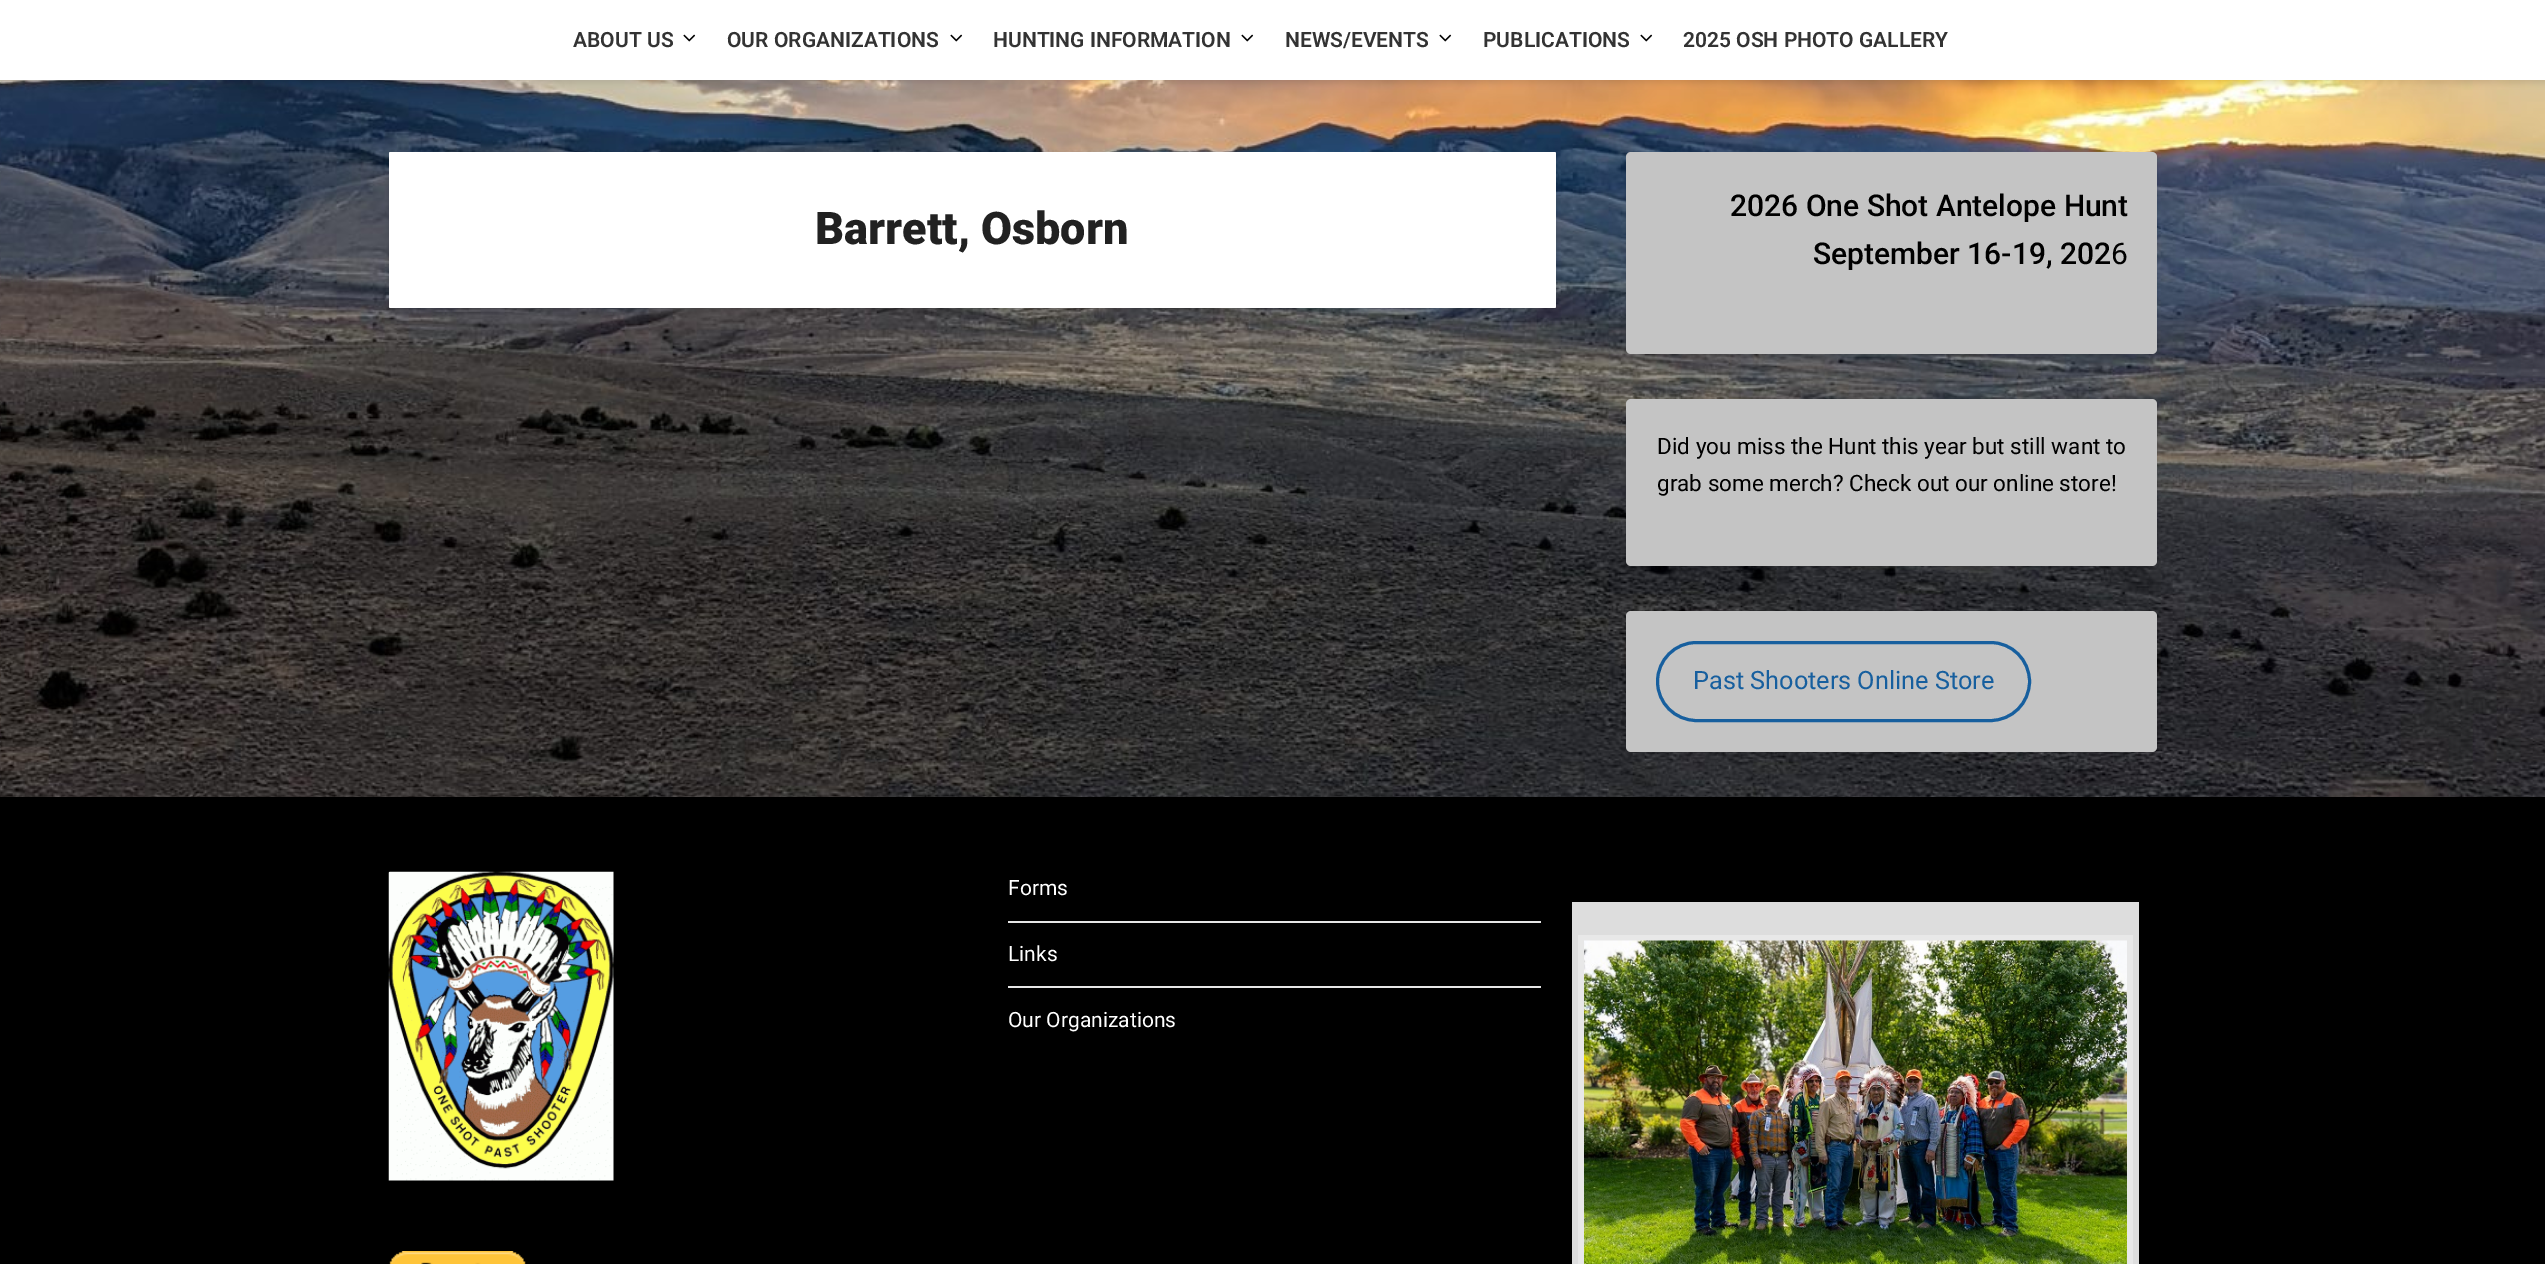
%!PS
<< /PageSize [2545 1264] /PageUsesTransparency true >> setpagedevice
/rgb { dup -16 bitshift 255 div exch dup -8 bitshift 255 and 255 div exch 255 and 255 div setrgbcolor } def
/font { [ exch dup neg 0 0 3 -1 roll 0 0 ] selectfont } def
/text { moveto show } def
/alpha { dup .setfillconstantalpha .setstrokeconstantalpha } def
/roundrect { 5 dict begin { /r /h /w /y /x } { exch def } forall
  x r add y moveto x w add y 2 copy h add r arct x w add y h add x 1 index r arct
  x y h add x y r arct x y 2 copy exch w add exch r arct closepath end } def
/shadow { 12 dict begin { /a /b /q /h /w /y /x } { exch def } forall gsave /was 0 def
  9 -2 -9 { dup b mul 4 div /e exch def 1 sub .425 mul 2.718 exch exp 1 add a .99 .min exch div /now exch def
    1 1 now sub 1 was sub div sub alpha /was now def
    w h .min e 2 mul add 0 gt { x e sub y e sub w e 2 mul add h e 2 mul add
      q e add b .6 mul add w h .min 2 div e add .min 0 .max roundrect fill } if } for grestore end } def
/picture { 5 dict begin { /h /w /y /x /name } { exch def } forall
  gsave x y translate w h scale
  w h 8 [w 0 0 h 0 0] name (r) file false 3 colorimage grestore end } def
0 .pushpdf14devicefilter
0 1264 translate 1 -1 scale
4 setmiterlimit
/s1 { /Roboto-SemiBold 21 font 16#333333 rgb } def
/s2 { /Roboto-Black 45 font 16#212121 rgb } def
/s3 { /Roboto-Medium 30 font 16#000000 rgb } def
/s4 { /Roboto-Regular 30 font 16#000000 rgb } def
/s5 { /Roboto-Regular 22.5 font 16#000000 rgb } def
/s6 { /Roboto-Regular 25.25 font 16#175F9E rgb } def
/s7 { /Roboto-Regular 21 font 16#FFFFFF rgb } def
16#FFFFFF rgb
0 0 2545 1264 rectfill
(pic1.raw) 0 80 2545 717 picture
16#000000 rgb
0 3 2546 80 0 3 0.1 shadow
16#FFFFFF rgb
0 0 2545 80 rectfill
s1
(ABOUT US) 573 47 text
(pic2.raw) 683 34 13 8 picture
(OUR ORGANIZATIONS) 727 47 text
(pic2.raw) 950 34 13 8 picture
(HUNTING INFORMATION) 993 47 text
(pic2.raw) 1241 34 13 8 picture
(NEWS/EVENTS) 1285 47 text
(pic2.raw) 1439 34 13 8 picture
(PUBLICATIONS) 1483 47 text
(pic2.raw) 1640 34 13 8 picture
(2025 OSH PHOTO GALLERY) 1683 47 text
16#000000 rgb
389 155 1167 156 1.5 3 0.1 shadow
16#FFFFFF rgb
389 152 1167 156 1.5 roundrect fill
s2
(Barrett, Osborn) 815 244 text
16#000000 rgb
1626 155 531 202 5 3 0.1 shadow
16#C4C4C4 rgb
1626 152 531 202 5 roundrect fill
s3
(2026 One Shot Antelope Hunt) 1730 216 text
(September 16-19, 202) 1813 264 text
s4
(6) 2111 264 text
1626 402 531 167 5 3 0.1 shadow
16#C4C4C4 rgb
1626 399 531 167 5 roundrect fill
s5
(Did you miss the Hunt this year but still want to) 1657 454 text
(grab some merch? Check out our online store!) 1657 491 text
1626 614 531 141 5 3 0.1 shadow
16#C4C4C4 rgb
1626 611 531 141 5 roundrect fill
16#175F9E rgb
3 setlinewidth
1657.5 642.5 372 78 39 roundrect stroke
s6
(Past Shooters Online Store) 1693 689 text
16#000000 rgb
0 797 2545 467 rectfill
(pic3.raw) 388 871 226 310 picture
(pic4.raw) 389 1251 137 13 picture
16#E6E6E6 rgb
1008 921 533 2 rectfill
s7
(Forms) 1008 895 text
16#E6E6E6 rgb
1008 986 533 2 rectfill
s7
(Links) 1008 961 text
(Our Organizations) 1008 1027 text
16#DDDDDD rgb
1572 902 567 362 rectfill
16#E8E8E8 rgb
1578 935 555 329 rectfill
(pic5.raw) 1584 940 543 324 picture
.poppdf14devicefilter showpage
